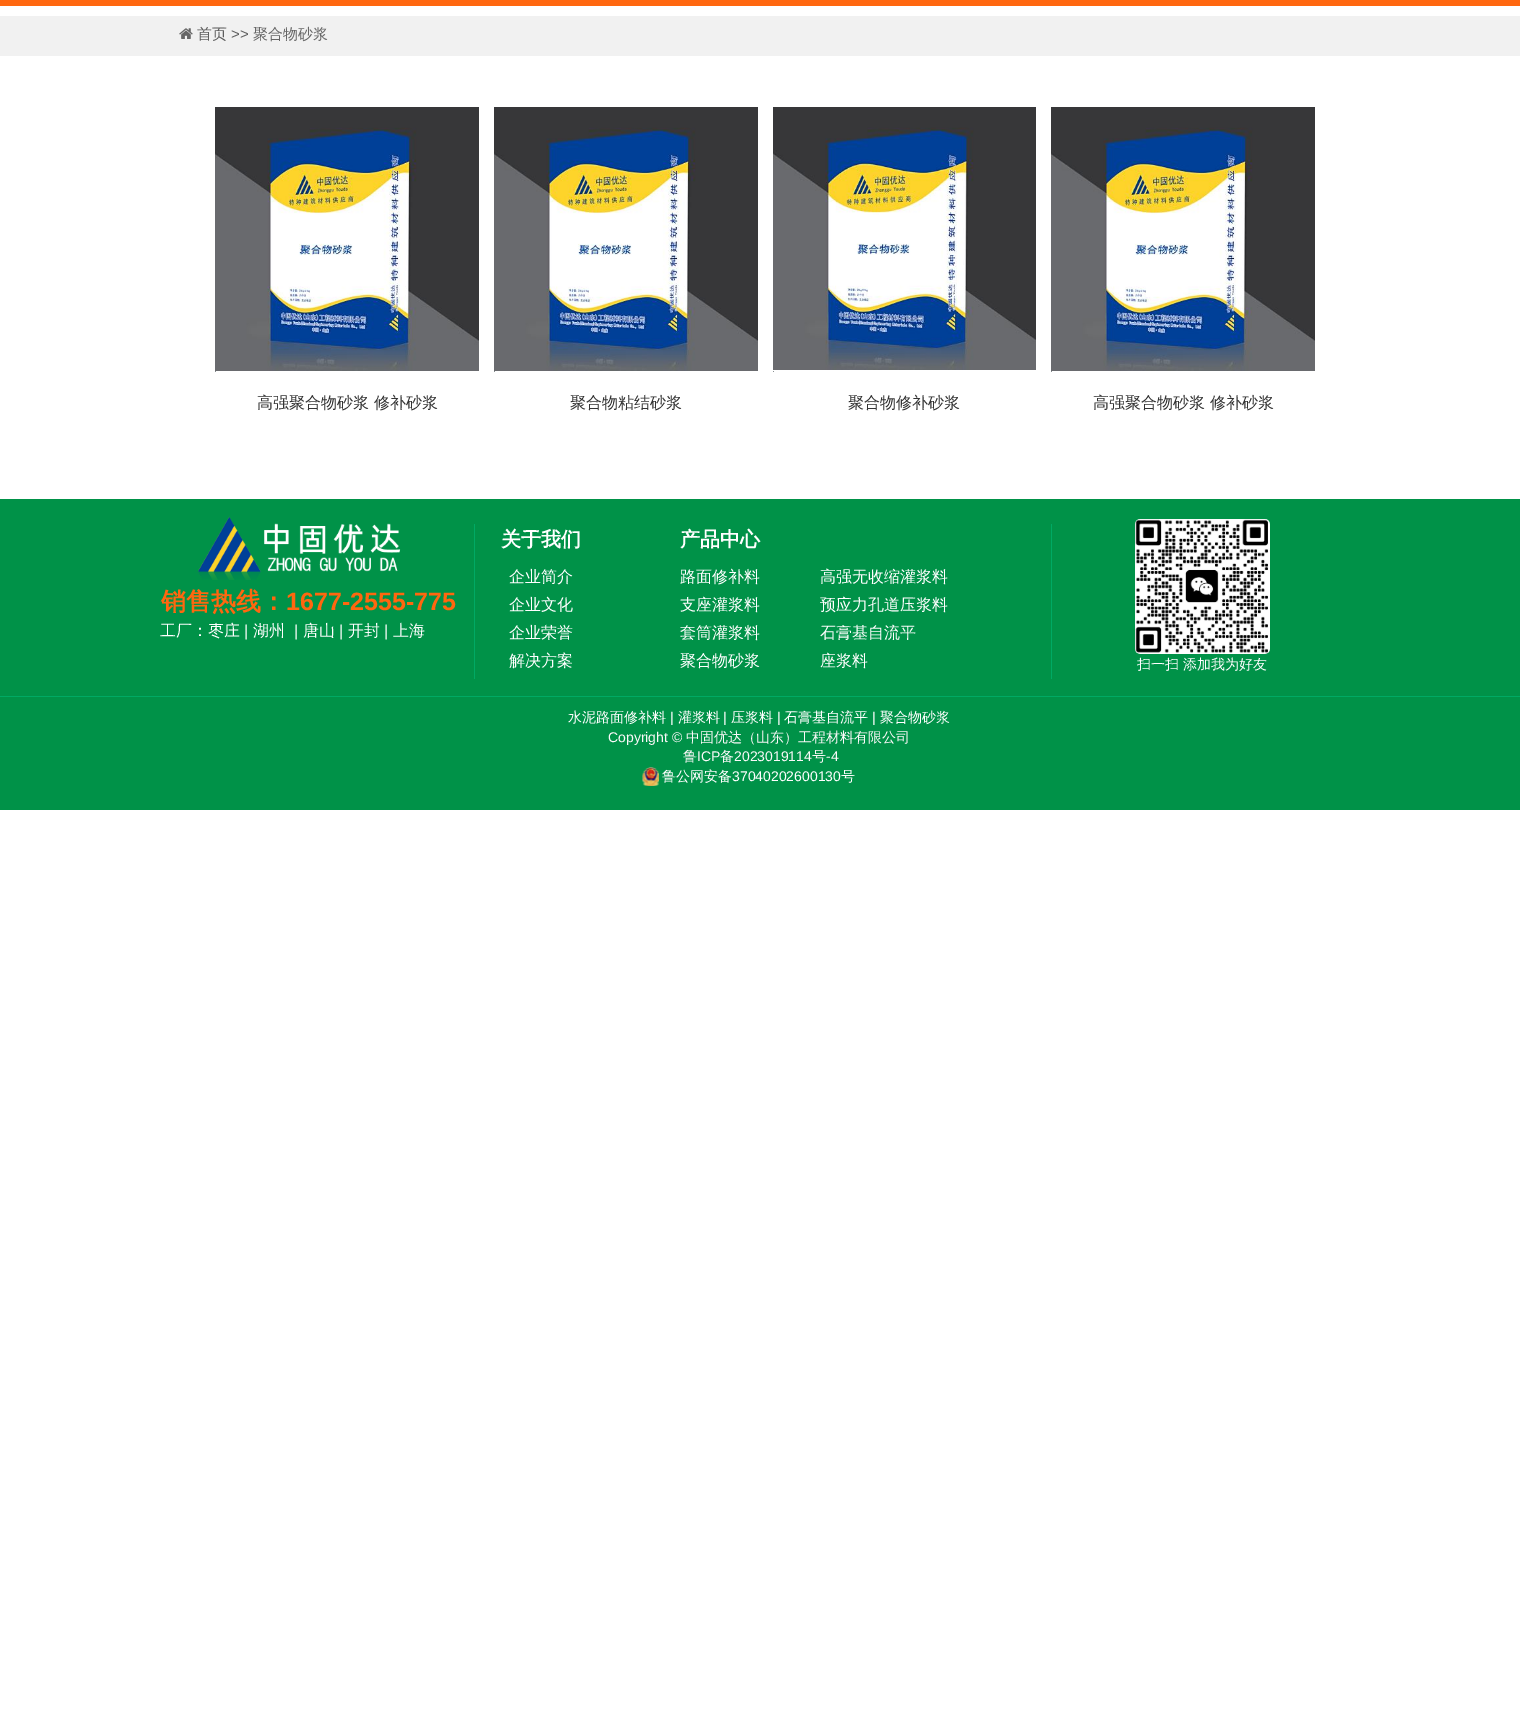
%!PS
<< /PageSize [1520 1722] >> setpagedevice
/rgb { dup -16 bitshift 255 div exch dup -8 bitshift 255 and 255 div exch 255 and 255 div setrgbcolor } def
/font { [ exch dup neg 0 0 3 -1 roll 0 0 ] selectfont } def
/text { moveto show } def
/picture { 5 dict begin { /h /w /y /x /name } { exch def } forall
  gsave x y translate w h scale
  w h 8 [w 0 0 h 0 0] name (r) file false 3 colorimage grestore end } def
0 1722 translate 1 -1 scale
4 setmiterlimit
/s1 { /WenQuanYiZenHei-Medium 15 font 16#5E5E5E rgb } def
/s2 { /LiberationSans-Regular 15 font 16#5E5E5E rgb } def
/s3 { /WenQuanYiZenHei-Medium 15 font 16#666666 rgb } def
/s4 { /WenQuanYiZenHei-Medium 16 font 16#333333 rgb } def
/s5 { /WenQuanYiZenHei-Bold 20 font 16#FFFFFF rgb } def
/s6 { /WenQuanYiZenHei-Medium 16 font 16#FFFFFF rgb } def
/s7 { /WenQuanYiZenHei-Bold 25 font 16#FF670F rgb } def
/s8 { /LiberationSans-Bold 25 font 16#FF670F rgb } def
/s9 { /LiberationSans-Regular 16 font 16#FFFFFF rgb } def
/s10 { /WenQuanYiZenHei-Medium 14 font 16#FFFFFF rgb } def
/s11 { /LiberationSans-Regular 14 font 16#FFFFFF rgb } def
/s12 { /LiberationSans-Regular 14 font 16#FBF9F9 rgb } def
/s13 { /WenQuanYiZenHei-Medium 14 font 16#FBF9F9 rgb } def
16#FFFFFF rgb
0 0 1520 1722 rectfill
16#FF670F rgb
0 0 1520 6 rectfill
16#F1F1F1 rgb
0 16 1520 40 rectfill
(pic1.raw) 179 28 14 11 picture
s1
(首页) 197 39 text
s2
(>>) 231 39 text
s3
(聚合物砂浆) 253 39 text
(pic2.raw) 215 107 264 264 picture
16#888F91 rgb
215 371 1 1 rectfill
s4
(高强聚合物砂浆 修补砂浆) 257 408 text
(pic2.raw) 494 107 264 264 picture
16#888F91 rgb
494 371 1 1 rectfill
s4
(聚合物粘结砂浆) 570 408 text
(pic3.raw) 773 107 263 263 picture
16#888F91 rgb
773 371 1 1 rectfill
s4
(聚合物修补砂浆) 848 408 text
(pic2.raw) 1051 107 264 264 picture
16#888F91 rgb
1051 371 1 1 rectfill
s4
(高强聚合物砂浆 修补砂浆) 1093 408 text
16#009248 rgb
0 499 1520 311 rectfill
(pic4.raw) 198 516 203 64 picture
16#00AA64 rgb
474 524 1 155 rectfill
s5
(关于我们) 501 546 text
(产品中心) 680 546 text
s6
(企业简介) 509 582 text
(企业文化) 509 610 text
(企业荣誉) 509 638 text
(解决方案) 509 666 text
(路面修补料) 680 582 text
(支座灌浆料) 680 610 text
(套筒灌浆料) 680 638 text
(聚合物砂浆) 680 666 text
(高强无收缩灌浆料) 820 582 text
(预应力孔道压浆料) 820 610 text
(石膏基自流平) 820 638 text
(座浆料) 820 666 text
16#00AA64 rgb
1051 524 1 155 rectfill
(pic5.raw) 1135 519 135 135 picture
s7
(销售热线：) 161 610 text
s8
(1677-2555-775) 286 610 text
s6
(工厂：枣庄) 160 636 text
s9
(|) 244 636 text
s6
(湖州) 253 636 text
s9
(|) 294 636 text
s6
(唐山) 303 636 text
s9
(|) 339 636 text
s6
(开封) 348 636 text
s9
(|) 384 636 text
s6
(上海) 393 636 text
s10
(扫一扫 添加我为好友) 1137 669 text
16#00AA64 rgb
0 696 1520 1 rectfill
s10
(水泥路面修补料) 568 722 text
s11
(|) 670 722 text
s10
(灌浆料) 678 722 text
s11
(|) 723 722 text
s10
(压浆料) 731 722 text
s11
(|) 777 722 text
s10
(石膏基自流平) 784 722 text
s11
(|) 872 722 text
s10
(聚合物砂浆) 880 722 text
s12
(Copyright ©) 608 742 text
s13
(中固优达（山东）工程材料有限公司) 686 742 text
(鲁) 683 761 text
s12
(ICP) 697 761 text
s13
(备) 720 761 text
s12
(2023019114) 734 761 text
s13
(号) 812 761 text
s12
(-4) 826 761 text
s10
(鲁公网安备) 662 781 text
s11
(37040202600130) 732 781 text
s10
(号) 841 781 text
(pic6.raw) 642 767 17 19 picture
showpage
